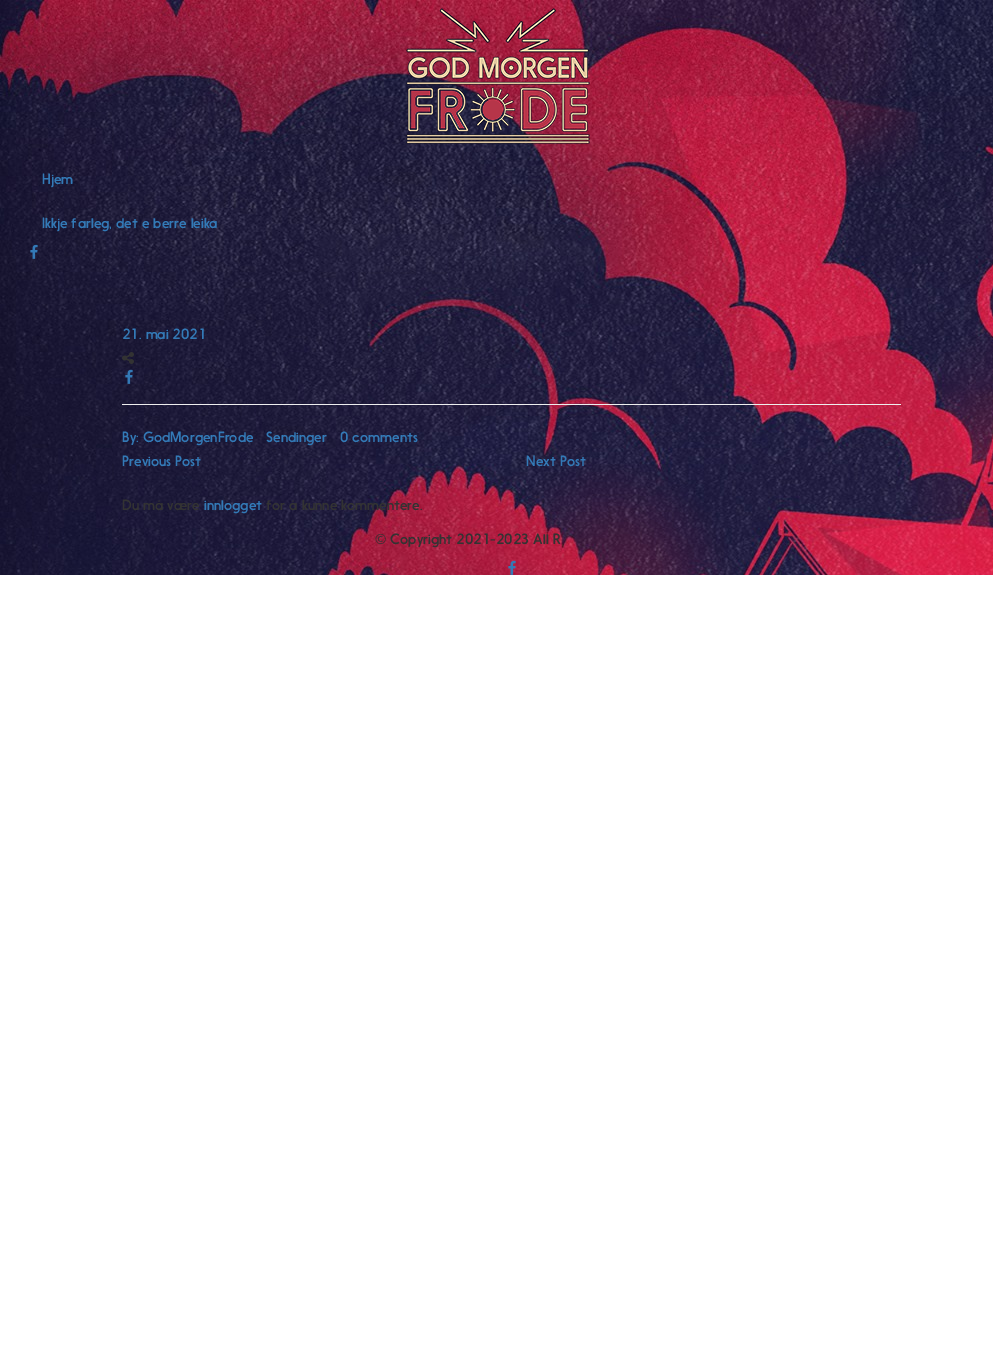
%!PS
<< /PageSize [993 1356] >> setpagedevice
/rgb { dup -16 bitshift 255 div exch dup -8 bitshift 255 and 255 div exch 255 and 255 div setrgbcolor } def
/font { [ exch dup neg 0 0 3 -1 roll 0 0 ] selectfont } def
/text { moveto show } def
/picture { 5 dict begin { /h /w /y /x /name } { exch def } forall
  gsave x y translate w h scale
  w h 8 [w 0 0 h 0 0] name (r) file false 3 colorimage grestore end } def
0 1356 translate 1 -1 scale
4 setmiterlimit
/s1 { /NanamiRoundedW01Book-Regular 14 font 16#337AB7 rgb } def
/s2 { /NanamiRoundedW01Book-Regular 14 font 16#333333 rgb } def
16#FFFFFF rgb
0 0 993 1356 rectfill
(pic1.raw) 0 0 993 575 picture
(pic2.raw) 406 8 184 136 picture
s1
(Hjem) 42 184 text
(Ikkje farleg, det e berre leika) 42 228 text
(pic3.raw) 30 244 8 15 picture
(21. mai 2021) 122 339 text
(pic4.raw) 122 352 12 12 picture
(pic5.raw) 125 369 8 15 picture
16#EEEEEE rgb
122 404 779 1 rectfill
s1
(By: GodMorgenFrode) 122 442 text
(Sendinger) 266 442 text
(0 comments) 340 442 text
(Previous Post) 122 466 text
(Next Post) 526 466 text
s2
(Du må være) 122 510 text
s1
(innlogget) 204 510 text
s2
(for å kunne kommentere.) 266 510 text
(© Copyright 2021-2023 All R) 375 544 text
(pic6.raw) 508 560 8 15 picture
showpage
